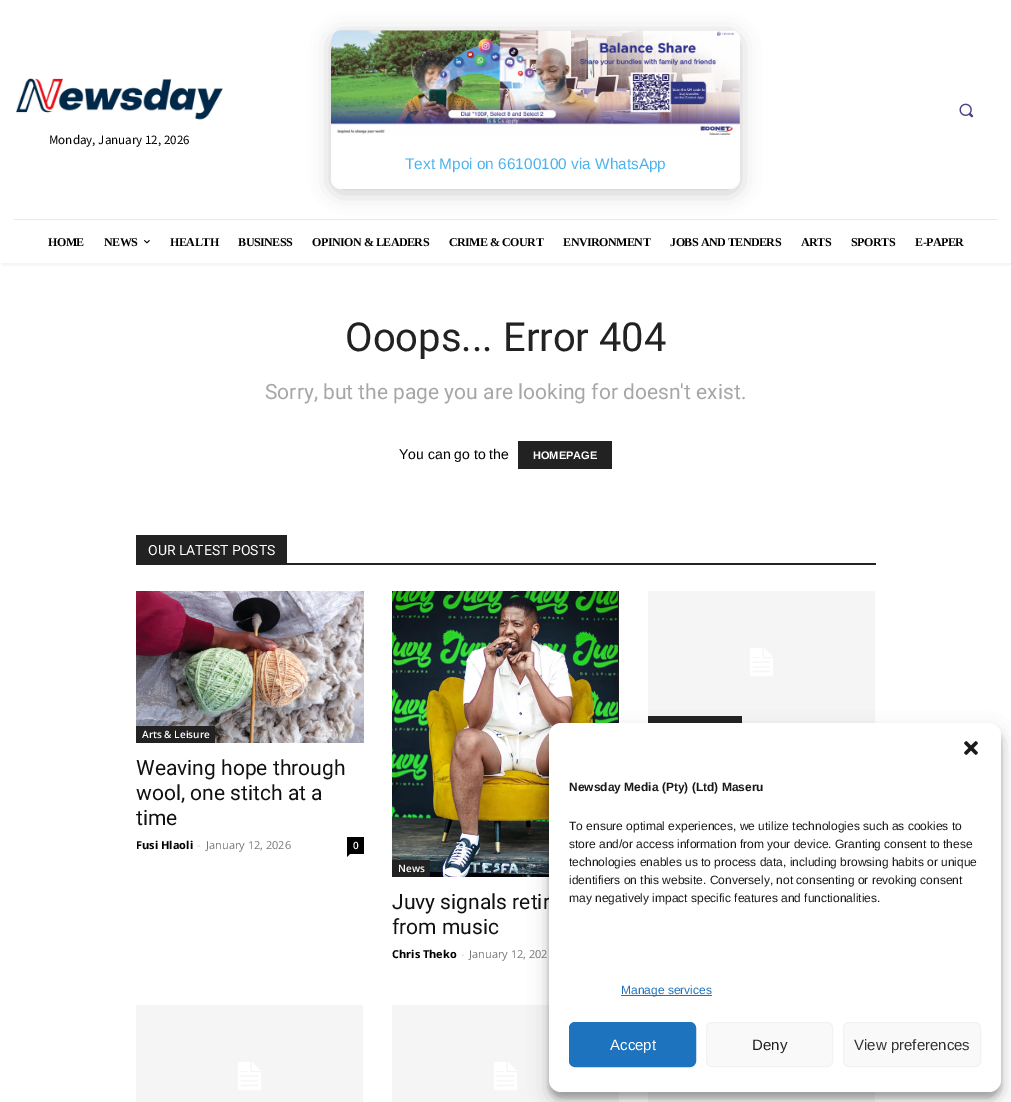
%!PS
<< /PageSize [1011 1102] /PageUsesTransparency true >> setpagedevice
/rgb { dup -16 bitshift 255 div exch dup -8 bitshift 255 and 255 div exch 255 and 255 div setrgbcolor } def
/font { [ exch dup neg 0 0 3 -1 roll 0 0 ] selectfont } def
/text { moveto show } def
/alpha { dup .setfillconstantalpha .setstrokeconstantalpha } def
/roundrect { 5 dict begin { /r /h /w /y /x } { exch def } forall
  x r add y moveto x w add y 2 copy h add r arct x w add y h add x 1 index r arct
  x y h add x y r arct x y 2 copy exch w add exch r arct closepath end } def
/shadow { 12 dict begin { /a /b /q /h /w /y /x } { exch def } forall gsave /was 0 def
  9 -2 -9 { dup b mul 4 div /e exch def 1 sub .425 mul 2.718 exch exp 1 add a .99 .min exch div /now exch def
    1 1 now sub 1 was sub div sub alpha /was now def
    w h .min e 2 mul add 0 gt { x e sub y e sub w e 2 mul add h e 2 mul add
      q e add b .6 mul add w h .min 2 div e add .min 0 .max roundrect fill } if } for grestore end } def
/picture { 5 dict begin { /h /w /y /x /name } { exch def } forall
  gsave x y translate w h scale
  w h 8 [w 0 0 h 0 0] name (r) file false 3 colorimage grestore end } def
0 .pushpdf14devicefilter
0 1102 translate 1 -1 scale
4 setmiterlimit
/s1 { /SourceSansPro-Regular 13 font 16#000000 rgb } def
/s2 { /LiberationSans-Regular 15.4 font 16#4DB2EC rgb } def
/s3 { /Roboto-Regular 40 font 16#222222 rgb } def
/s4 { /Roboto-Regular 21 font 16#A6A6A6 rgb } def
/s5 { /LiberationSans-Regular 14 font 16#000000 rgb } def
/s6 { /LiberationSans-Bold 11 font 16#FFFFFF rgb } def
/s7 { /Roboto-Regular 14 font 16#FFFFFF rgb } def
/s8 { /OpenSans-SemiBold 10 font 16#FFFFFF rgb } def
/s9 { /Roboto-Regular 21 font 16#111111 rgb } def
/s10 { /OpenSans-Bold 11 font 16#000000 rgb } def
/s11 { /OpenSans-Regular 11 font 16#CCCCCC rgb } def
/s12 { /OpenSans-Regular 11 font 16#767676 rgb } def
/s13 { /LiberationSans-Bold 12 font 16#1A1919 rgb } def
/s14 { /LiberationSans-Regular 12 font 16#1A1919 rgb } def
/s15 { /LiberationSans-Regular 12 font 16#1E73BE rgb } def
/s16 { /LiberationSans-Regular 15 font 16#FFFFFF rgb } def
/s17 { /LiberationSans-Regular 15 font 16#222222 rgb } def
/s18 { /LiberationSans-Regular 15 font 16#333333 rgb } def
16#FFFFFF rgb
0 0 1011 1102 rectfill
(pic1.raw) 959 103 15 15 picture
(pic2.raw) 15 78 208 42 picture
s1
(Monday, January 12, 2026) 49 144 text
331 34 409 159 10 10 0.2 shadow
16#FFFFFF rgb
331 30 409 159 10 roundrect fill
(pic3.raw) 331 30 409 105 picture
s2
(Text Mpoi on 66100100 via WhatsApp) 405 169 text
16#EAEAEA rgb
14 219 983 1 rectfill
gsave
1 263 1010 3 rectclip
16#000000 rgb
1 191 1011 74 0 2 0.06 shadow
grestore
/LiberationSerif-Bold 12 font
16#000000 rgb
48 246 moveto -0.5 0 (HOME) ashow
104 246 moveto -0.5 0 (NEWS) ashow
(pic4.raw) 144 240 6 4 picture
170 246 moveto -0.5 0 (HEALTH) ashow
238 246 moveto -0.5 0 (BUSINESS) ashow
312 246 moveto -0.5 0 (OPINION & LEADERS) ashow
449 246 moveto -0.5 0 (CRIME & COURT) ashow
563 246 moveto -0.5 0 (ENVIRONMENT) ashow
670 246 moveto -0.5 0 (JOBS AND TENDERS) ashow
801 246 moveto -0.5 0 (ARTS) ashow
851 246 moveto -0.5 0 (SPORTS) ashow
915 246 moveto -0.5 0 (E-PAPER) ashow
s3
(Ooops... Error 404) 345 351 text
s4
(Sorry, but the page you are looking for doesn't exist.) 265 399 text
s5
(You can go to the) 399 459 text
16#222222 rgb
518 441 94 28 rectfill
s6
(HOMEPAGE) 533 459 text
16#222222 rgb
136 563 740 2 rectfill
136 535 151 28 rectfill
s7
(OUR LATEST POSTS) 148 555 text
(pic5.raw) 648 591 227 132 picture
16#222222 rgb
648 716 94 7 rectfill
(pic6.raw) 136 591 228 152 picture
136 726 79 17 rectfill
s8
(Arts & Leisure) 142 738 text
s9
(Weaving hope through) 136 775 text
(wool, one stitch at a) 136 800 text
(time) 136 825 text
s10
(Fusi Hlaoli) 136 849 text
s11
(-) 197 849 text
s12
(January 12, 2026) 206 849 text
16#000000 rgb
347 837 17 17 rectfill
s8
(0) 353 849 text
16#000000 rgb
347 854 moveto 350 854 lineto 347 857 lineto closepath fill
(pic7.raw) 392 591 227 286 picture
16#222222 rgb
392 860 38 17 rectfill
s8
(News) 398 872 text
s9
(Juvy signals retir) 392 909 text
(from music) 392 934 text
s10
(Chris Theko) 392 958 text
s11
(-) 461 958 text
s12
(January 12, 202) 469 958 text
(pic8.raw) 136 1005 227 97 picture
(pic8.raw) 392 1005 227 97 picture
(pic9.raw) 648 1092 227 10 picture
16#000000 rgb
549 729 452 369 12 3 0.23 shadow
549 733 452 369 12 10 0.19 shadow
16#FFFFFF rgb
549 723 452 369 12 roundrect fill
(pic10.raw) 964 741 14 14 picture
s13
(Newsday Media \(Pty\) \(Ltd\) Maseru) 569 791 text
s14
(To ensure optimal experiences, we utilize technologies such as cookies to) 569 830 text
(store and/or access information from your device. Granting consent to these) 569 848 text
(technologies enables us to process data, including browsing habits or unique) 569 866 text
(identifiers on this website. Conversely, not consenting or revoking consent) 569 884 text
(may negatively impact specific features and functionalities.) 569 902 text
16#1E73BE rgb
621 995 91 1 rectfill
(Manage services) 621 994 text
569.5 1022.5 126 44 5.5 roundrect gsave fill grestore
stroke
s16
(Accept) 610 1050 text
16#F9F9F9 rgb
706.5 1022.5 126 44 5.5 roundrect gsave fill grestore
16#F2F2F2 rgb
stroke
s17
(Deny) 752 1050 text
16#F9F9F9 rgb
843.5 1022.5 137 44 5.5 roundrect gsave fill grestore
16#F2F2F2 rgb
stroke
s18
(View preferences) 854 1050 text
.poppdf14devicefilter showpage
